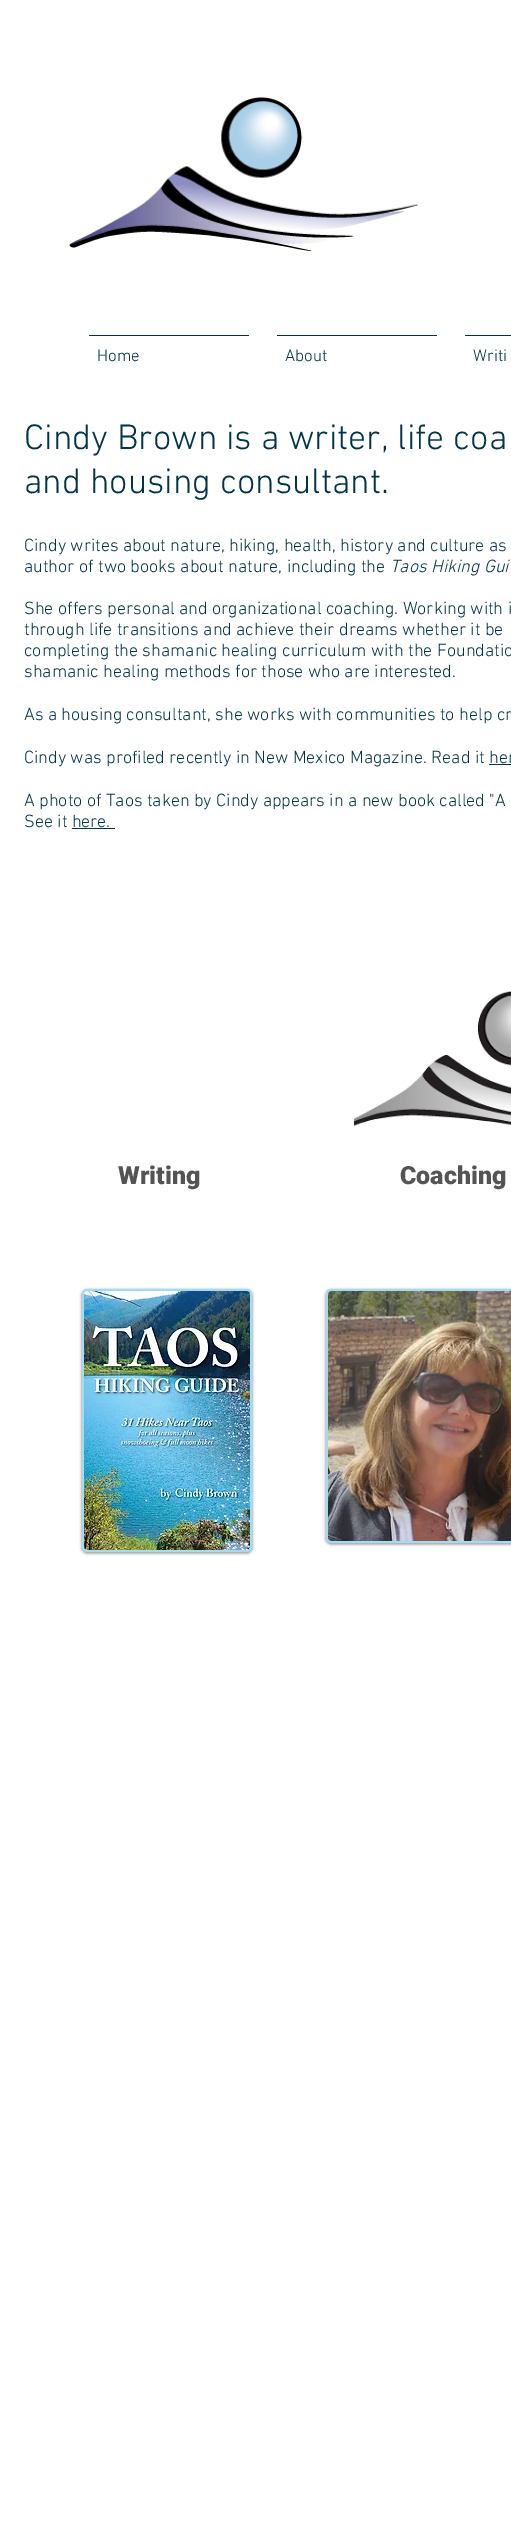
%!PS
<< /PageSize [511 2547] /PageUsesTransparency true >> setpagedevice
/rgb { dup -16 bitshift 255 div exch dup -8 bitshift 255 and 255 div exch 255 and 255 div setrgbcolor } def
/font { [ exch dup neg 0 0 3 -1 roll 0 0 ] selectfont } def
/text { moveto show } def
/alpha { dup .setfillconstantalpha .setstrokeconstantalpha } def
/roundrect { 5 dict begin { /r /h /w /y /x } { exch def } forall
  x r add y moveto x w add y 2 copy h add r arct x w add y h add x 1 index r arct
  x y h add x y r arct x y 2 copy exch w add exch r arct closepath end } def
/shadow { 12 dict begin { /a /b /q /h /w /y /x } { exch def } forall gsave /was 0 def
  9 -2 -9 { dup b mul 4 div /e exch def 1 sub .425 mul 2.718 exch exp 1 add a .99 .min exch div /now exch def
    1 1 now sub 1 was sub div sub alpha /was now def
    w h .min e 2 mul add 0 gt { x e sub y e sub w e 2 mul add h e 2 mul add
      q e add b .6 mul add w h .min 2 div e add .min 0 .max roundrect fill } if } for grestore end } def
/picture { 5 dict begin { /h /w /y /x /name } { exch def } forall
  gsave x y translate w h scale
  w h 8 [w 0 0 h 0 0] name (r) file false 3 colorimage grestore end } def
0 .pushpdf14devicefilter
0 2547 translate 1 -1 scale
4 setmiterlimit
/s1 { /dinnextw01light-Light 17 font 16#003448 rgb } def
/s2 { /dinnextw01light-Light 36 font 16#003448 rgb } def
/s3 { /dinnextw01light-Light 18 font 16#003448 rgb } def
/s4 { /dinnextw01light-LightItalic 18 font 16#003448 rgb } def
/s5 { /Roboto-Black 25 font 16#545454 rgb } def
16#FFFFFF rgb
0 0 511 2547 rectfill
(pic1.raw) 69 97 349 154 picture
16#003448 rgb
89 335 160 1 rectfill
s1
(Home) 97 361 text
277 335 160 1 rectfill
(About) 285 361 text
465 335 46 1 rectfill
(Writi) 473 361 text
s2
(Cindy Brown is a writer, life coa) 24 449 text
(and housing consultant.) 24 493 text
s3
(Cindy writes about nature, hiking, health, history and culture as) 24 551 text
(author of two books about nature, including the) 24 572 text
s4
(Taos Hiking Gui) 390 572 text
s3
(She offers personal and organizational coaching. Working with i) 24 614 text
(through life transitions and achieve their dreams whether it be) 24 635 text
(completing the shamanic healing curriculum with the Foundatio) 24 656 text
(shamanic healing methods for those who are interested.) 24 677 text
(As a housing consultant, she works with communities to help cr) 24 720 text
(Cindy was profiled recently in New Mexico Magazine. Read it her) 24 763 text
489 764 22 1 rectfill
(A photo of Taos taken by Cindy appears in a new book called "A) 24 806 text
(See it here.) 24 827 text
72 828 43 1 rectfill
(pic2.raw) 354 991 157 135 picture
s5
(Writing) 118 1184 text
(Coaching) 400 1184 text
16#000000 rgb
82 1290 170 263 5 1.5 0.5 shadow
16#A1DCF2 rgb
83 1290 168 261 4 roundrect gsave fill grestore
2 setlinewidth
stroke
(pic3.raw) 84 1291 166 259 picture
16#000000 rgb
326 1290 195 254 5 1.5 0.5 shadow
16#A1DCF2 rgb
327 1290 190 252 4 roundrect gsave fill grestore
stroke
(pic4.raw) 328 1291 183 250 picture
.poppdf14devicefilter showpage
